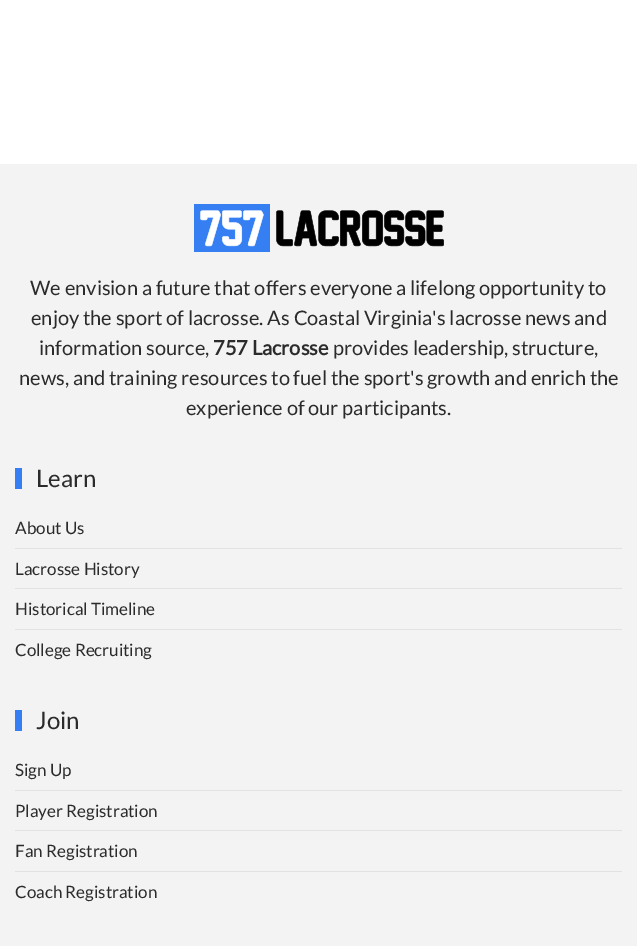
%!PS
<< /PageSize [637 946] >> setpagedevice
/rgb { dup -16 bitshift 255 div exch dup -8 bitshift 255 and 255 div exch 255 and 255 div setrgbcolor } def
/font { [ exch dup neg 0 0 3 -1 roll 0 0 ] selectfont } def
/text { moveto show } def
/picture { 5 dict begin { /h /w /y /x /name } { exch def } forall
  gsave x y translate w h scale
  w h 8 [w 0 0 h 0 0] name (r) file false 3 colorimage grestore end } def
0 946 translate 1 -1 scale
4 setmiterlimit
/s1 { /Lato-Regular 20 font 16#2B2B2B rgb } def
/s2 { /Lato-Bold 20 font 16#2B2B2B rgb } def
/s3 { /Lato-Regular 24 font 16#2B2B2B rgb } def
/s4 { /Lato-Regular 17 font 16#2B2B2B rgb } def
16#FFFFFF rgb
0 0 637 946 rectfill
16#F3F3F3 rgb
0 164 637 782 rectfill
(pic1.raw) 194 204 250 48 picture
s1
(We envision a future that offers everyone a lifelong opportunity to) 30 295 text
(enjoy the sport of lacrosse. As Coastal Virginia's lacrosse news and) 31 325 text
(information source,) 39 355 text
s2
(757 Lacrosse) 213 355 text
s1
(provides leadership, structure,) 333 355 text
(news, and training resources to fuel the sport's growth and enrich the) 19 385 text
(experience of our participants.) 186 415 text
16#367EF3 rgb
15 468 7 21 rectfill
s3
(Learn) 36 487 text
s4
(About Us) 15 534 text
16#E2E2E2 rgb
15 548 607 1 rectfill
s4
(Lacrosse History) 15 575 text
16#E2E2E2 rgb
15 588 607 1 rectfill
s4
(Historical Timeline) 15 615 text
16#E2E2E2 rgb
15 629 607 1 rectfill
s4
(College Recruiting) 15 656 text
16#367EF3 rgb
15 710 7 21 rectfill
s3
(Join) 36 729 text
s4
(Sign Up) 15 776 text
16#E2E2E2 rgb
15 790 607 1 rectfill
s4
(Player Registration) 15 817 text
16#E2E2E2 rgb
15 830 607 1 rectfill
s4
(Fan Registration) 15 857 text
16#E2E2E2 rgb
15 871 607 1 rectfill
s4
(Coach Registration) 15 898 text
showpage
